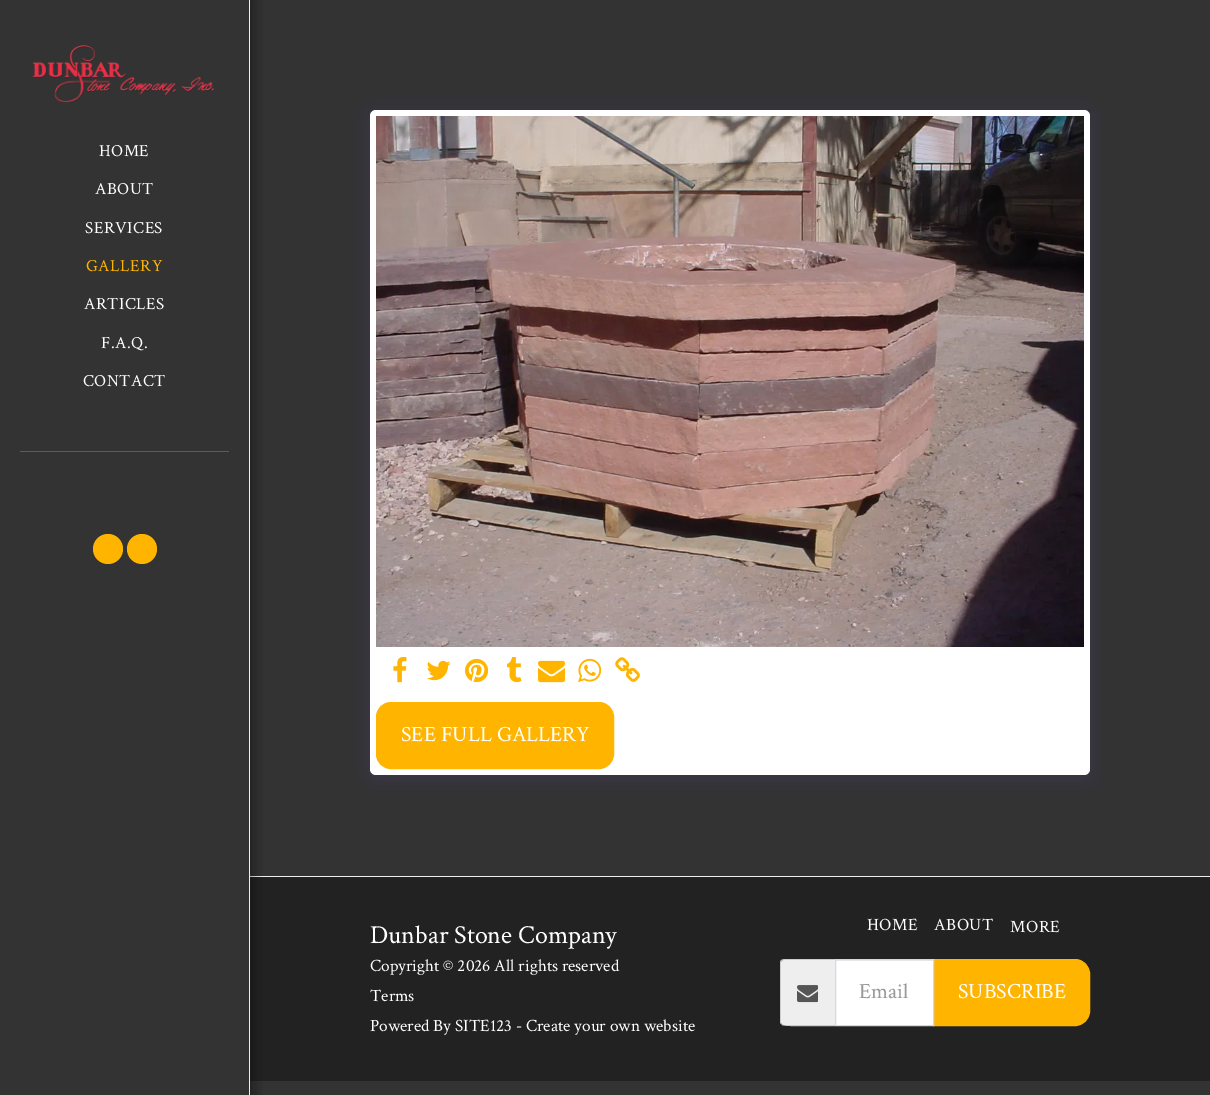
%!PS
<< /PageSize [1210 1095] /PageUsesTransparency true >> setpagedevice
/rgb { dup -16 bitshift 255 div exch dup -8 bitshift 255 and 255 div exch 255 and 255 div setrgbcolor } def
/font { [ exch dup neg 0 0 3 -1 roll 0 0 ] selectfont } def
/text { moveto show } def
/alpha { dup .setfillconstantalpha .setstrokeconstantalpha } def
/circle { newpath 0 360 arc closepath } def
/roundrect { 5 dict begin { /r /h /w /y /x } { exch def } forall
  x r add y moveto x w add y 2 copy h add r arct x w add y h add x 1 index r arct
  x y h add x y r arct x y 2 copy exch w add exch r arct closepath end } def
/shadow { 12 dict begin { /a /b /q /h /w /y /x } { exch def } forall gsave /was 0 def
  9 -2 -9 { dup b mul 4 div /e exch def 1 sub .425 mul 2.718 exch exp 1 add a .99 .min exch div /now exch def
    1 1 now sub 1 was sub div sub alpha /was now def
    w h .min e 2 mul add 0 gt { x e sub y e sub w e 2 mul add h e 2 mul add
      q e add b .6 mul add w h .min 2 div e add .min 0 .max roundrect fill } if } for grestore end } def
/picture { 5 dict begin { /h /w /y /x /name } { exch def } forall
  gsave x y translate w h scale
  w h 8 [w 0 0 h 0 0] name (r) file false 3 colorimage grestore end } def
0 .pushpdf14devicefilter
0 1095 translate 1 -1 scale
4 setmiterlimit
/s1 { /CrimsonText-Regular 21.75 font 16#FFFFFF rgb } def
/s2 { /CrimsonText-Regular 26 font 16#FFFFFF rgb } def
/s3 { /CrimsonText-Regular 17.3 font 16#FFFFFF rgb } def
/s4 { /CrimsonText-Regular 21.75 font 16#999999 rgb } def
16#333333 rgb
0 0 1210 1095 rectfill
16#222222 rgb
250 877 960 204 rectfill
16#F3EEEE rgb
250 876 960 1 rectfill
gsave
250 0 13 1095 rectclip
16#000000 rgb
0 -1 254 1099 0 6 0.35 shadow
grestore
249 0 1 1095 rectfill
(pic1.raw) 32 45 183 58 picture
/CrimsonText-Regular 17 font
16#FFFFFF rgb
99 156 moveto 0.5 0 (HOME) ashow
95 194 moveto 0.5 0 (ABOUT) ashow
85 233 moveto 0.5 0 (SERVICES) ashow
16#FFB400 rgb
86 271 moveto 0.5 0 (GALLERY) ashow
16#FFFFFF rgb
84 309 moveto 0.5 0 (ARTICLES) ashow
101 348 moveto 0.5 0 (F.A.Q.) ashow
83 386 moveto 0.5 0 (CONTACT) ashow
16#5C5C5C rgb
20 451 209 1 rectfill
16#FFB400 rgb
108 549 15 circle fill
142 549 15 circle fill
16#4D3F7A rgb
370 113 720 665 6 10 0.4 shadow
16#FFFFFF rgb
370 110 720 665 6 roundrect fill
(pic2.raw) 376 116 708 531 picture
(pic3.raw) 393 657 14 26 picture
(pic4.raw) 426 660 25 21 picture
(pic5.raw) 465 658 23 25 picture
(pic6.raw) 507 657 15 26 picture
(pic7.raw) 538 660 27 23 picture
(pic8.raw) 578 658 23 25 picture
(pic9.raw) 615 657 25 25 picture
16#FFB400 rgb
376.5 702.5 237 66 14.5 roundrect gsave fill grestore
stroke
s1
(SEE FULL GALLERY) 401 741 text
s2
(Dunbar Stone Company) 370 943 text
s3
(Copyright © 2026 All rights reserved) 370 971 text
(Terms) 370 1001 text
(Powered By SITE123 - Create your own website) 370 1031 text
867 930 moveto 0.5 0 (HOME) ashow
934 930 moveto 0.5 0 (ABOUT) ashow
1010 932 moveto 0.5 0 (MORE) ashow
16#EEEEEE rgb
784 960 moveto 835 960 lineto 835 1025 lineto 784 1025 lineto 782.5 1025 781 1023.5 781 1022 curveto 781 963 lineto 781 961.5 782.5 960 784 960 curveto closepath fill
16#CCCCCC rgb
784 959 moveto 835 959 lineto 835 1026 lineto 829 1026 784 1027 782 1025 curveto 780 1023 lineto 780 962 lineto 781 960 lineto closepath 784 960 moveto 835 960 lineto 835 1025 lineto 784 1025 lineto 782 1025 781 1024 781 1022 curveto 781 963 lineto 781 961 782 960 784 960 curveto closepath eofill
(pic10.raw) 797 985 21 18 picture
16#FFFFFF rgb
836 961 97 64 rectfill
16#ECECEC rgb
836 960 97 1 rectfill
16#FFB400 rgb
933.5 959.5 moveto 1075 959.5 lineto 1083 959.5 1089.5 966 1089.5 974 curveto 1089.5 1011 lineto 1089.5 1019 1083 1025.5 1075 1025.5 curveto 933.5 1025.5 lineto closepath gsave fill grestore
stroke
16#D4D7E5 rgb
835.5 959.5 98 66 rectstroke
s4
(Email) 859 998 text
s1
(SUBSCRIBE) 958 998 text
.poppdf14devicefilter showpage
